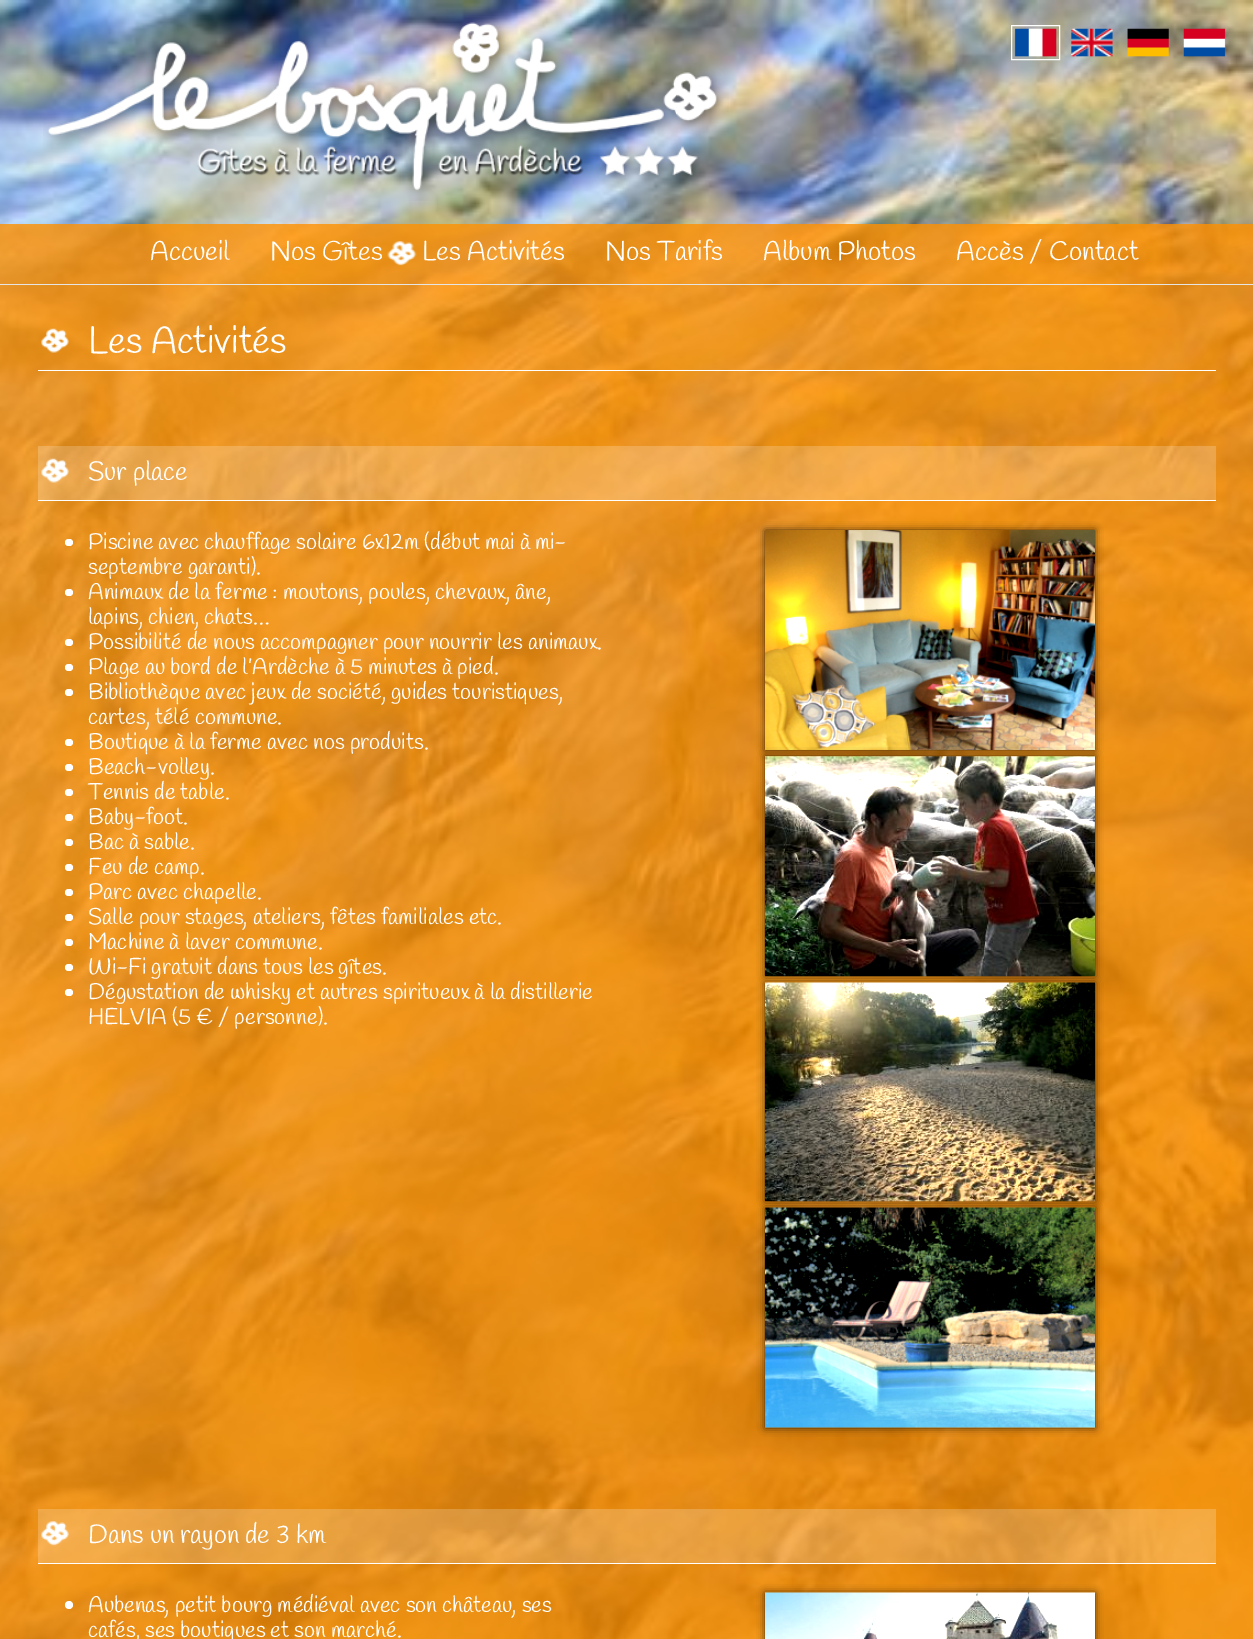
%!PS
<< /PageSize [1253 1639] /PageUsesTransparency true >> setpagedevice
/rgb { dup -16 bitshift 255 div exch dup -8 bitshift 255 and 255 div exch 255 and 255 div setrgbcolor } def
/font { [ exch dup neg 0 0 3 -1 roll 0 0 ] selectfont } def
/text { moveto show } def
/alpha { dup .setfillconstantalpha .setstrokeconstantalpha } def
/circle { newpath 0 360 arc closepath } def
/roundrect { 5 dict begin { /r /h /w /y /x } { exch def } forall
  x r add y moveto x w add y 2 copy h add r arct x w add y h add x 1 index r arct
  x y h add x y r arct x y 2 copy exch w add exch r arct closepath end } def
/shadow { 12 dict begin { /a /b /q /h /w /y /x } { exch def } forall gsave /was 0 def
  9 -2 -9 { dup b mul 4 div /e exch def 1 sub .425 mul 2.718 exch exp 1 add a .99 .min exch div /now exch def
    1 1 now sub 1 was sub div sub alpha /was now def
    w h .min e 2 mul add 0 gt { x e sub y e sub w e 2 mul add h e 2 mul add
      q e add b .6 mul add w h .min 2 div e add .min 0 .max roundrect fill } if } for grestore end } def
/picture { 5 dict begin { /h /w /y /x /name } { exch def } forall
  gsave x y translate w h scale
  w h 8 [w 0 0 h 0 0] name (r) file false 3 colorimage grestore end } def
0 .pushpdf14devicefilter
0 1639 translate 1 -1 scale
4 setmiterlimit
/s1 { /Handlee-Regular 27 font 16#FFFFFF rgb } def
/s2 { /Handlee-Regular 37.5 font 16#FFFFFF rgb } def
/s3 { /Handlee-Regular 26.25 font 16#FFFFFF rgb } def
/s4 { /Handlee-Regular 22.5 font 16#FFFFFF rgb } def
16#FFFFFF rgb
0 0 1253 1639 rectfill
(pic1.raw) 0 0 1253 1639 picture
(pic2.raw) 43 17 686 184 picture
(pic3.raw) 1014 28 43 29 picture
1011.5 25.5 48 34 rectstroke
(pic4.raw) 1071 28 42 29 picture
(pic5.raw) 1127 28 42 29 picture
(pic6.raw) 1183 28 43 29 picture
0.8 alpha
16#FF9000 rgb
0 224 1253 60 rectfill
1 alpha
16#E5E5E5 rgb
0 284 1253 1 rectfill
s1
(Accueil) 150 260 text
(Nos Gîtes) 270 260 text
(pic7.raw) 387 241 30 25 picture
(Les Activités) 422 260 text
(Nos Tarifs) 605 260 text
(Album Photos) 763 260 text
(Accès / Contact) 956 260 text
0.8 alpha
16#FF9000 rgb
0 285 1253 1354 rectfill
1 alpha
16#FFFFFF rgb
38 370 1178 1 rectfill
(pic8.raw) 41 328 28 25 picture
s2
(Les Activités) 88 353 text
0.2 alpha
38 446 1178 54 rectfill
1 alpha
(pic9.raw) 41 458 28 25 picture
38 500 1178 1 rectfill
s3
(Sur place) 88 480 text
65 539 8 7 3.5 roundrect fill
s4
(Piscine avec chauffage solaire 6x12m \(début mai à mi-) 88 549 text
(septembre garanti\).) 88 574 text
65 589 8 7 3.5 roundrect fill
(Animaux de la ferme : moutons, poules, chevaux, âne,) 88 599 text
(lapins, chien, chats…) 88 624 text
65 639 8 7 3.5 roundrect fill
(Possibilité de nous accompagner pour nourrir les animaux.) 88 649 text
65 664 8 7 3.5 roundrect fill
(Plage au bord de l’Ardèche à 5 minutes à pied.) 88 674 text
65 689 8 7 3.5 roundrect fill
(Bibliothèque avec jeux de société, guides touristiques,) 88 699 text
(cartes, télé commune.) 88 724 text
65 739 8 7 3.5 roundrect fill
(Boutique à la ferme avec nos produits.) 88 749 text
65 764 8 7 3.5 roundrect fill
(Beach-volley.) 88 774 text
65 789 8 7 3.5 roundrect fill
(Tennis de table.) 88 799 text
65 814 8 7 3.5 roundrect fill
(Baby-foot.) 88 824 text
65 839 8 7 3.5 roundrect fill
(Bac à sable.) 88 849 text
65 864 8 7 3.5 roundrect fill
(Feu de camp.) 88 874 text
65 889 8 7 3.5 roundrect fill
(Parc avec chapelle.) 88 899 text
65 914 8 7 3.5 roundrect fill
(Salle pour stages, ateliers, fêtes familiales etc.) 88 924 text
65 939 8 7 3.5 roundrect fill
(Machine à laver commune.) 88 949 text
65 964 8 7 3.5 roundrect fill
(Wi-Fi gratuit dans tous les gîtes.) 88 974 text
65 989 8 7 3.5 roundrect fill
(Dégustation de whisky et autres spiritueux à la distillerie) 88 999 text
(HELVIA \(5 € / personne\).) 88 1024 text
16#000000 rgb
765 530 330 220 0 4 0.7 shadow
(pic10.raw) 765 530 330 220 picture
765 756 330 220 0 4 0.7 shadow
(pic11.raw) 765 756 330 221 picture
765 983 330 218 0 4 0.7 shadow
(pic12.raw) 765 982 330 220 picture
765 1208 330 220 0 4 0.7 shadow
(pic13.raw) 765 1207 330 221 picture
0.2 alpha
16#FFFFFF rgb
38 1509 1178 54 rectfill
1 alpha
(pic14.raw) 41 1521 28 25 picture
38 1563 1178 1 rectfill
s3
(Dans un rayon de 3 km) 88 1543 text
69 1605 4 circle fill
s4
(Aubenas, petit bourg médiéval avec son château, ses) 88 1612 text
(cafés, ses boutiques et son marché.) 88 1637 text
16#000000 rgb
765 1593 330 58 0 4 0.7 shadow
(pic15.raw) 765 1592 330 47 picture
.poppdf14devicefilter showpage
